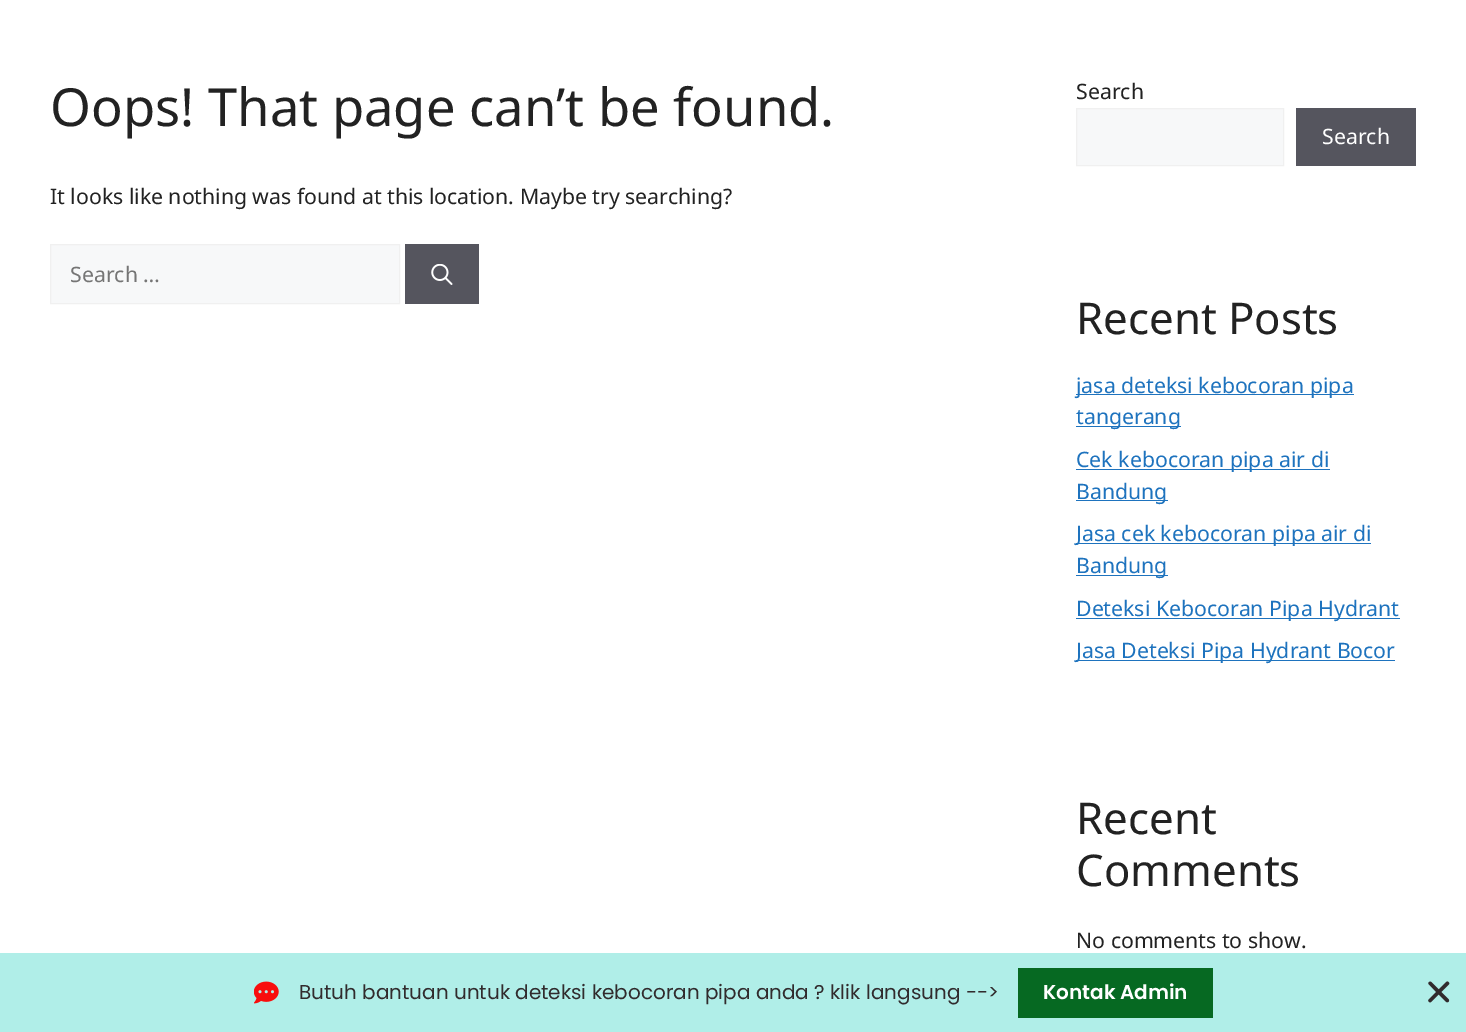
%!PS
<< /PageSize [1466 1032] >> setpagedevice
/rgb { dup -16 bitshift 255 div exch dup -8 bitshift 255 and 255 div exch 255 and 255 div setrgbcolor } def
/font { [ exch dup neg 0 0 3 -1 roll 0 0 ] selectfont } def
/text { moveto show } def
/picture { 5 dict begin { /h /w /y /x /name } { exch def } forall
  gsave x y translate w h scale
  w h 8 [w 0 0 h 0 0] name (r) file false 3 colorimage grestore end } def
0 1032 translate 1 -1 scale
4 setmiterlimit
/s1 { /NotoSans-Regular 52.5 font 16#222222 rgb } def
/s2 { /NotoSans-Regular 21.25 font 16#222222 rgb } def
/s3 { /NotoSans-Regular 21.25 font 16#757575 rgb } def
/s4 { /NotoSans-Regular 21.25 font 16#FFFFFF rgb } def
/s5 { /NotoSans-Regular 43.75 font 16#222222 rgb } def
/s6 { /NotoSans-Regular 21.25 font 16#1E73BE rgb } def
/s7 { /Poppins-Regular 20 font 16#312B2D rgb } def
/s8 { /Poppins-SemiBold 20 font 16#FFFFFF rgb } def
16#FFFFFF rgb
0 0 1466 1032 rectfill
s1
(Oops! That page can’t be found.) 50 126 text
s2
(It looks like nothing was found at this location. Maybe try searching?) 50 204 text
16#F7F8F9 rgb
50.5 244.5 moveto 399.5 244.5 lineto 399.5 303.5 lineto 50.5 303.5 lineto closepath gsave fill grestore
16#F0F0F0 rgb
stroke
s3
(Search …) 70 282 text
16#55555E rgb
405 244 74 60 rectfill
(pic1.raw) 431 264 22 21 picture
s2
(Search) 1076 99 text
16#F7F8F9 rgb
1076.5 108.5 moveto 1283.5 108.5 lineto 1283.5 165.5 lineto 1076.5 165.5 lineto closepath gsave fill grestore
16#F0F0F0 rgb
stroke
16#55555E rgb
1296 108 120 58 rectfill
s4
(Search) 1322 144 text
s5
(Recent Posts) 1076 334 text
16#1E73BE rgb
1076 394 278 1 rectfill
s6
(jasa deteksi kebocoran pipa) 1076 393 text
1076 426 105 1 rectfill
(tangerang) 1076 424 text
1076 469 254 1 rectfill
(Cek kebocoran pipa air di) 1076 467 text
1076 500 92 1 rectfill
(Bandung) 1076 499 text
1076 543 295 1 rectfill
(Jasa cek kebocoran pipa air di) 1076 541 text
1076 575 92 1 rectfill
(Bandung) 1076 573 text
1076 618 324 1 rectfill
(Deteksi Kebocoran Pipa Hydrant) 1076 616 text
1076 660 319 1 rectfill
(Jasa Deteksi Pipa Hydrant Bocor) 1076 658 text
s5
(Recent) 1076 834 text
(Comments) 1076 886 text
s2
(No comments to show.) 1076 948 text
16#B0EEE8 rgb
0 953 1466 79 rectfill
(pic2.raw) 254 981 25 23 picture
s7
(Butuh bantuan untuk deteksi kebocoran pipa anda ? klik langsung -->) 299 999 text
16#066922 rgb
1018 968 195 50 rectfill
s8
(Kontak Admin) 1043 999 text
(pic3.raw) 1428 981 22 22 picture
showpage
